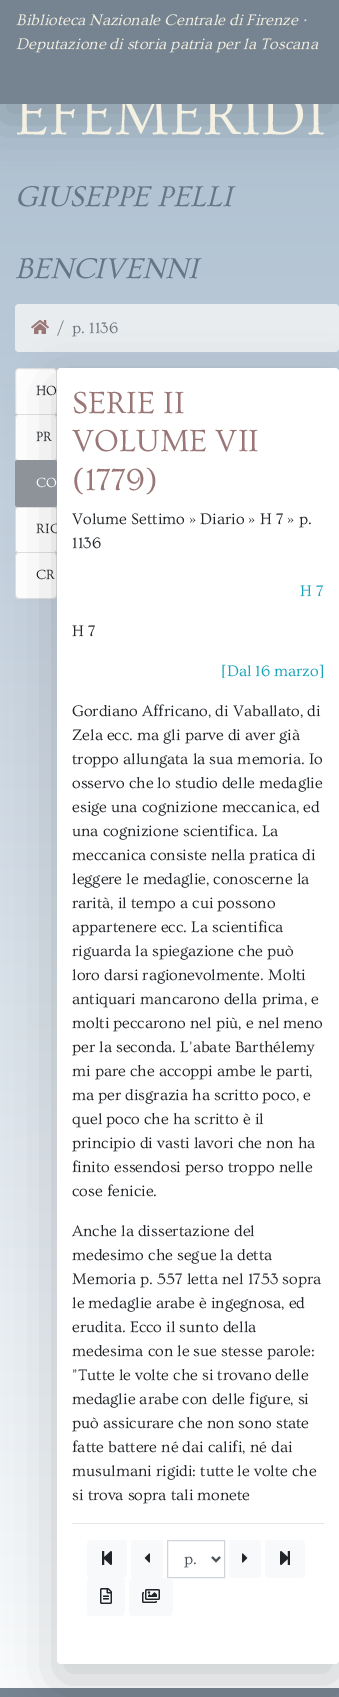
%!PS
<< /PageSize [339 1697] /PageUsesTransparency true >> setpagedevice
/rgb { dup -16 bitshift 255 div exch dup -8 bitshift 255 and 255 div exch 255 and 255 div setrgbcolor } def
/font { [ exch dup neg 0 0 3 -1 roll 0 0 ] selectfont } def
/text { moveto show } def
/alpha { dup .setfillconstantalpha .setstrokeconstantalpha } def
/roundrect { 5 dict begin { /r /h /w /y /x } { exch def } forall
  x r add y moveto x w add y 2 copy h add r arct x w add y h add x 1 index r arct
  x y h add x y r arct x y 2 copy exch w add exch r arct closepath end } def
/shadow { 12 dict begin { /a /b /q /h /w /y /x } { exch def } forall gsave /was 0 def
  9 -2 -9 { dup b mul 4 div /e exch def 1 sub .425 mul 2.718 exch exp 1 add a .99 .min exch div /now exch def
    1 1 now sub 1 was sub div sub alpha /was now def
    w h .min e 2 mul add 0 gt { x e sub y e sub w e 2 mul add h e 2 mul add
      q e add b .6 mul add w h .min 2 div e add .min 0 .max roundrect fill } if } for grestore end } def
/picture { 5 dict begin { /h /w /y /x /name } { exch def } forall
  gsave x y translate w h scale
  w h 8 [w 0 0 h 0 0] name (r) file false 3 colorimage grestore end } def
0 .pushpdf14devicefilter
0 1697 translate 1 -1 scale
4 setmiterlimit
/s1 { /Ovo-Regular 60 font 16#F4F0E2 rgb } def
/s2 { /Ovo-Italic 16 font 16#F4F0E2 rgb } def
/s3 { /Ovo-Italic 30 font 16#647688 rgb } def
/s4 { /Ovo-Regular 16 font 16#6C757D rgb } def
/s5 { /Ovo-Regular 14 font 16#212529 rgb } def
/s6 { /Ovo-Regular 14 font 16#FFFFFF rgb } def
/s7 { /Ovo-Regular 32 font 16#9A7676 rgb } def
/s8 { /Ovo-Regular 16 font 16#212529 rgb } def
/s9 { /Ovo-Regular 16 font 16#17A2B8 rgb } def
/s10 { /Ovo-Regular 16 font 16#495057 rgb } def
16#FFFFFF rgb
0 0 339 1697 rectfill
gsave 0 104 moveto 339 104 lineto 339 1688 lineto 0 1688 lineto closepath clip newpath
<< /ShadingType 2 /ColorSpace /DeviceRGB /Coords [169 0 170 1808] /Extend [true true] /Function << /FunctionType 2 /Domain [0 1] /C0 [0.663 0.737 0.804] /C1 [1 1 1] /N 1 >> >> shfill grestore
16#000000 rgb
0 16 339 104 0 24 0.18 shadow
s1
(EFEMERIDI) 15 134 text
16#768390 rgb
0 0 339 104 rectfill
s2
(Biblioteca Nazionale Centrale di Firenze ·) 16 25 text
(Deputazione di storia patria per la Toscana) 16 49 text
s3
(GIUSEPPE PELLI) 15 206 text
(BENCIVENNI) 15 278 text
16#E9ECEF rgb
15 304 324 48 4 roundrect fill
(pic1.raw) 31 320 18 14 picture
s4
(/) 57 333 text
(p. 1136) 72 333 text
16#FFFFFF rgb
19 368 moveto 53 368 lineto 55 368 57 370 57 372 curveto 57 412 lineto 57 413.5 55.5 415 54 415 curveto 18 415 lineto 16.5 415 15 413.5 15 412 curveto 15 372 lineto 15 370 17 368 19 368 curveto closepath fill
0.12 alpha
16#000000 rgb
19 368.5 moveto 53 368.5 lineto 55 368.5 56.5 370 56.5 372 curveto 56.5 412 lineto 56.5 413.5 55.5 414.5 54 414.5 curveto 18 414.5 lineto 16.5 414.5 15.5 413.5 15.5 412 curveto 15.5 372 lineto 15.5 370 17 368.5 19 368.5 curveto closepath stroke
1 alpha
s5
(HO) 36 395 text
16#FFFFFF rgb
15 415 42 46 3 roundrect fill
0.12 alpha
16#000000 rgb
18 415 moveto 54 415 lineto 56 415 57 416 57 418 curveto 57 458 lineto 57 460 56 461 54 461 curveto 18 461 lineto 16 461 15 460 15 458 curveto 15 418 lineto 15 416 16 415 18 415 curveto closepath 18 415 moveto 54 415 lineto 55 415 56 416 56 418 curveto 56 458 lineto 56 459 55 460 54 460 curveto 18 460 lineto 17 460 16 459 16 458 curveto 16 418 lineto 16 416 17 415 18 415 curveto closepath eofill
1 alpha
s5
(PR) 36 441 text
16#FFFFFF rgb
15 507 42 46 3 roundrect fill
0.12 alpha
16#000000 rgb
18 507 moveto 54 507 lineto 56 507 57 508 57 510 curveto 57 550 lineto 57 552 56 553 54 553 curveto 18 553 lineto 16 553 15 552 15 550 curveto 15 510 lineto 15 508 16 507 18 507 curveto closepath 18 507 moveto 54 507 lineto 55 507 56 508 56 510 curveto 56 550 lineto 56 551 55 552 54 552 curveto 18 552 lineto 17 552 16 551 16 550 curveto 16 510 lineto 16 508 17 507 18 507 curveto closepath eofill
1 alpha
16#FFFFFF rgb
18 553 moveto 54 553 lineto 55.5 553 57 554.5 57 556 curveto 57 595 lineto 57 597 55 599 53 599 curveto 19 599 lineto 17 599 15 597 15 595 curveto 15 556 lineto 15 554.5 16.5 553 18 553 curveto closepath fill
0.12 alpha
16#000000 rgb
18 553 moveto 54 553 lineto 56 553 57 554 57 556 curveto 57 595 lineto 57 597 55 599 53 599 curveto 19 599 lineto 17 599 15 597 15 595 curveto 15 556 lineto 15 554 16 553 18 553 curveto closepath 18 553 moveto 54 553 lineto 55 553 56 554 56 556 curveto 56 595 lineto 56 597 55 598 53 598 curveto 19 598 lineto 17 598 16 597 16 595 curveto 16 556 lineto 16 554 17 553 18 553 curveto closepath eofill
1 alpha
16#768390 rgb
0 1688 339 9 rectfill
16#000000 rgb
57 384 282 1296 4 24 0.18 shadow
16#8D9399 rgb
15.5 460.5 41 46 2.5 roundrect gsave fill grestore
stroke
s6
(CO) 36 487 text
s5
(RIC) 36 533 text
(CR) 36 579 text
16#FFFFFF rgb
57 368 282 1296 4 roundrect fill
s7
(SERIE II) 72 413 text
(VOLUME VII) 72 451 text
(\(1779\)) 72 490 text
s8
(Volume Settimo » Diario » H 7 » p.) 72 524 text
(1136) 72 548 text
s9
(H 7) 300 596 text
s8
(H 7) 72 636 text
s9
([Dal 16 marzo]) 221 676 text
s8
(Gordiano Affricano, di Vaballato, di) 72 716 text
(Zela ecc. ma gli parve di aver già) 72 740 text
(troppo allungata la sua memoria. Io) 72 764 text
(osservo che lo studio delle medaglie) 72 788 text
(esige una cognizione meccanica, ed) 72 812 text
(una cognizione scientifica. La) 72 836 text
(meccanica consiste nella pratica di) 72 860 text
(leggere le medaglie, conoscerne la) 72 884 text
(rarità, il tempo a cui possono) 72 908 text
(appartenere ecc. La scientifica) 72 932 text
(riguarda la spiegazione che può) 72 956 text
(loro darsi ragionevolmente. Molti) 72 980 text
(antiquari mancarono della prima, e) 72 1004 text
(molti peccarono nel più, e nel meno) 72 1028 text
(per la seconda. L'abate Barthélemy) 72 1052 text
(mi pare che accoppi ambe le parti,) 72 1076 text
(ma per disgrazia ha scritto poco, e) 72 1100 text
(quel poco che ha scritto è il) 72 1124 text
(principio di vasti lavori che non ha) 72 1148 text
(finito essendosi perso troppo nelle) 72 1172 text
(cose fenicie.) 72 1196 text
(Anche la dissertazione del) 72 1236 text
(medesimo che segue la detta) 72 1260 text
(Memoria p. 557 letta nel 1753 sopra) 72 1284 text
(le medaglie arabe è ingegnosa, ed) 72 1308 text
(erudita. Ecco il sunto della) 72 1332 text
(medesima con le sue stesse parole:) 72 1356 text
("Tutte le volte che si trovano delle) 72 1380 text
(medaglie arabe con delle figure, si) 72 1404 text
(può assicurare che non sono state) 72 1428 text
(fatte battere né dai califi, né dai) 72 1452 text
(musulmani rigidi: tutte le volte che) 72 1476 text
(si trova sopra tali monete) 72 1500 text
16#E6E6E6 rgb
72 1523 252 1 rectfill
16#F8F9FA rgb
87 1540 40 38 4 roundrect fill
(pic2.raw) 102 1551 10 14 picture
131 1540 32 38 4 roundrect fill
(pic3.raw) 144 1553 6 10 picture
16#CED4DA rgb
167.5 1540.5 57 37 rectstroke
16#495057 rgb
2 setlinewidth
212 1557 moveto 216 1561 lineto 220 1557 lineto stroke
(p.) 184 1564 text
16#F8F9FA rgb
229 1540 32 38 4 roundrect fill
(pic4.raw) 242 1553 6 10 picture
265 1540 40 38 4 roundrect fill
(pic5.raw) 280 1551 10 14 picture
87 1578 38 38 4 roundrect fill
(pic6.raw) 100 1588 12 16 picture
129 1578 44 38 4 roundrect fill
(pic7.raw) 142 1589 18 14 picture
.poppdf14devicefilter showpage
